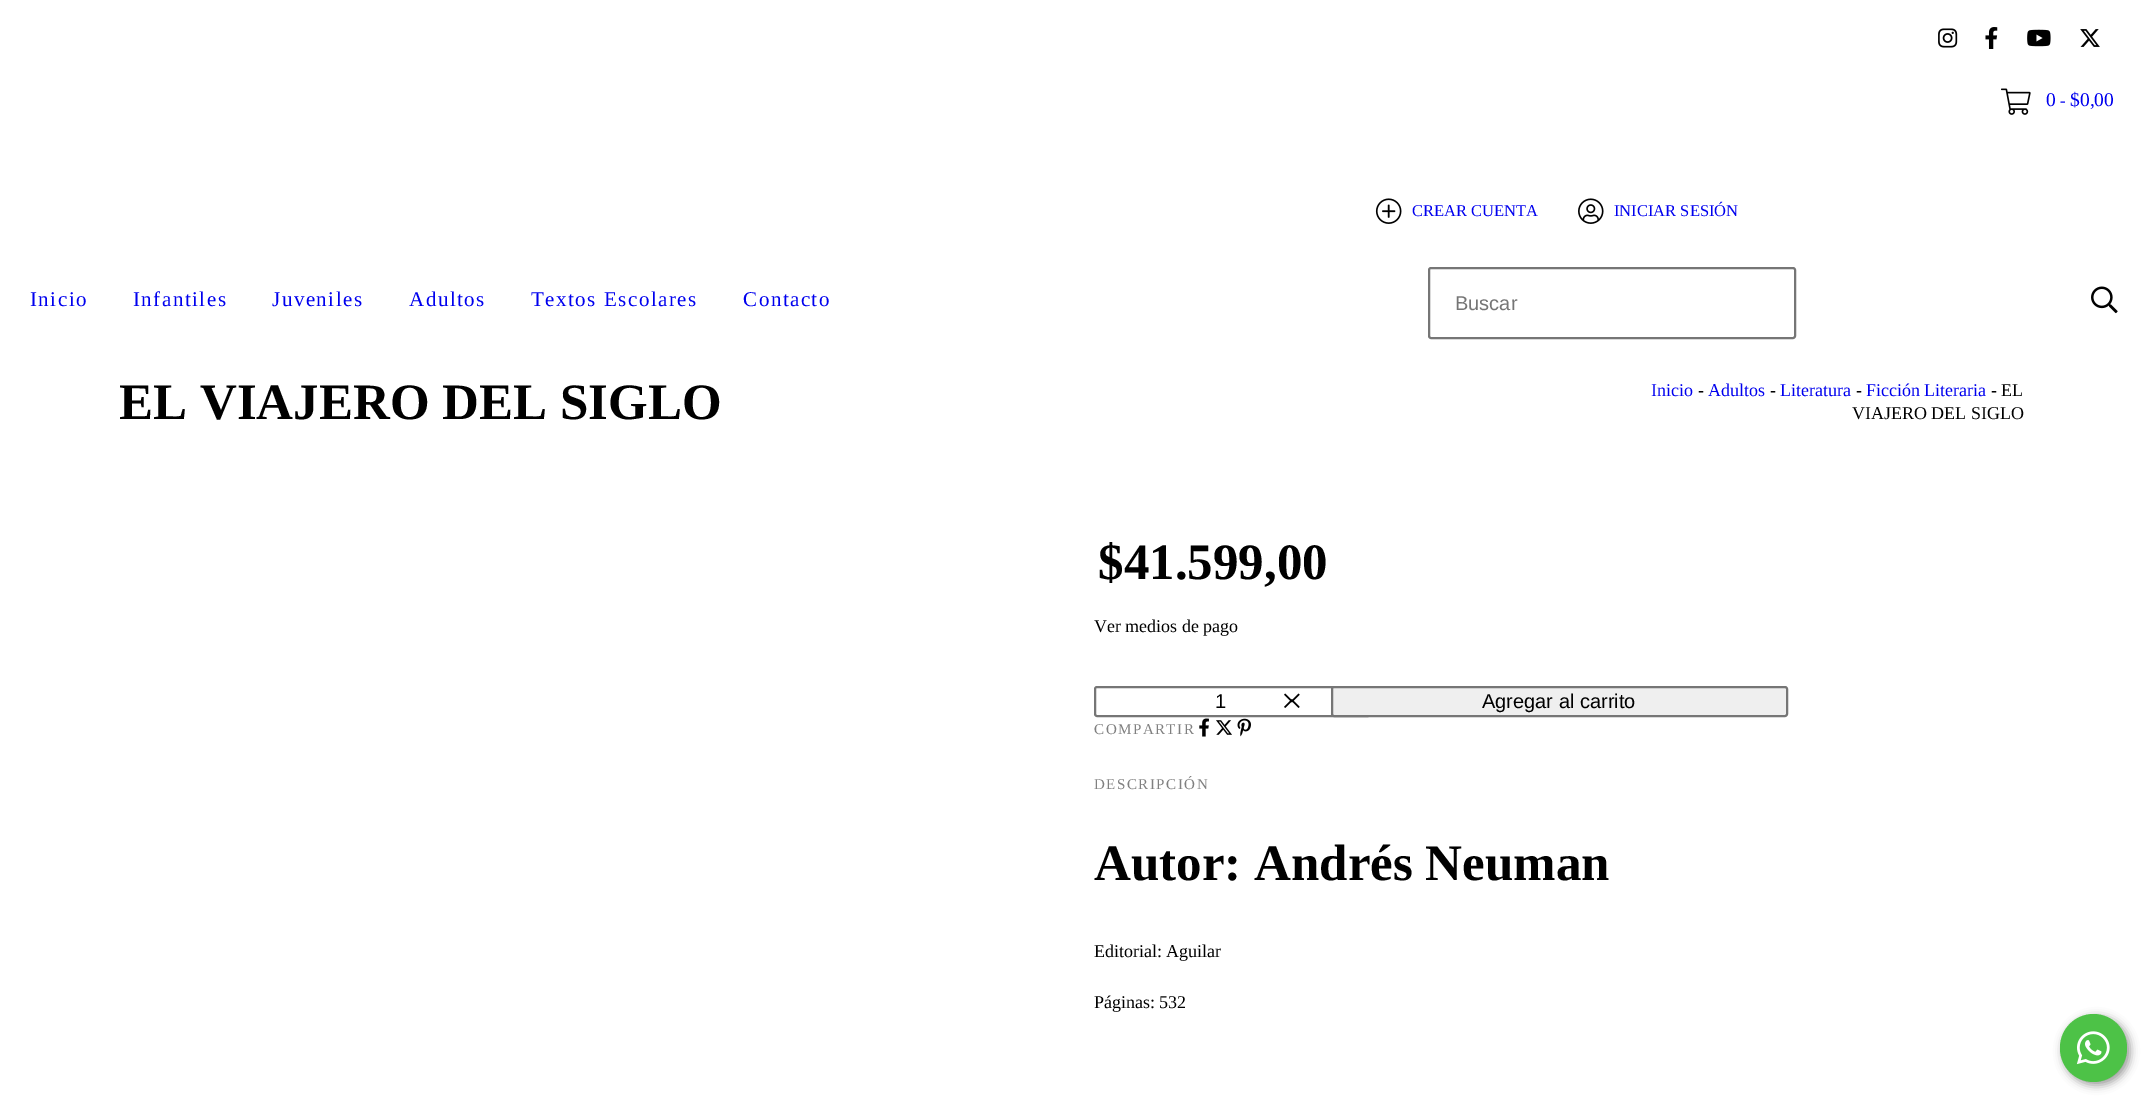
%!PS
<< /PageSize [2142 1096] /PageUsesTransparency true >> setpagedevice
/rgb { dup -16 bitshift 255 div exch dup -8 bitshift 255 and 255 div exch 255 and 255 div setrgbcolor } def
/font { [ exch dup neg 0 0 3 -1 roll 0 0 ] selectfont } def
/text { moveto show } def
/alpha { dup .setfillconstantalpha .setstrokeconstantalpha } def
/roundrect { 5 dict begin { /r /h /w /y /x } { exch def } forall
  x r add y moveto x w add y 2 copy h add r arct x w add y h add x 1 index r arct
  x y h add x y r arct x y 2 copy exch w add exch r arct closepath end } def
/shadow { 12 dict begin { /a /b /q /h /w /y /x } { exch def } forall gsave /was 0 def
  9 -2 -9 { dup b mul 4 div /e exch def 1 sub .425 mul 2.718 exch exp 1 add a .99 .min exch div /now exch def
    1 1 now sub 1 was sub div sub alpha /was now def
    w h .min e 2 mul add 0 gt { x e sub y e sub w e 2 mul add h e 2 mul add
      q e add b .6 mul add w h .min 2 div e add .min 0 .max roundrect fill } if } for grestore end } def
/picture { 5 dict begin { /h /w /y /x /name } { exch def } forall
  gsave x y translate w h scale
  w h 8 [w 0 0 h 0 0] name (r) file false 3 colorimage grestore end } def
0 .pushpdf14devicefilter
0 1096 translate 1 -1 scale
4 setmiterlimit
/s1 { /LiberationSerif-Regular 19.5 font 16#0000EE rgb } def
/s2 { /LiberationSerif-Regular 16.5 font 16#0000EE rgb } def
/s3 { /LiberationSans-Regular 20 font 16#757575 rgb } def
/s4 { /LiberationSerif-Bold 51 font 16#000000 rgb } def
/s5 { /LiberationSerif-Regular 18 font 16#0000EE rgb } def
/s6 { /LiberationSerif-Regular 18 font 16#000000 rgb } def
/s7 { /LiberationSans-Regular 20 font 16#000000 rgb } def
16#FFFFFF rgb
0 0 2142 1096 rectfill
(pic1.raw) 1938 28 20 20 picture
(pic2.raw) 1985 27 13 22 picture
(pic3.raw) 2027 29 24 18 picture
(pic4.raw) 2080 29 20 18 picture
(pic5.raw) 2001 88 30 27 picture
s1
(0) 2046 106 text
s2
(-) 2060 106 text
s1
($0,00) 2070 106 text
(pic6.raw) 1375 198 27 26 picture
s2
(CREAR CUENTA) 1412 216 text
(pic7.raw) 1578 198 26 26 picture
(INICIAR SESIÓN) 1614 216 text
/LiberationSerif-Regular 21 font
30 306 moveto 1.5 0 (Inicio) ashow
133 306 moveto 1.5 0 (Infantiles) ashow
272 306 moveto 1.5 0 (Juveniles) ashow
409 306 moveto 1.5 0 (Adultos) ashow
531 306 moveto 1.5 0 (Textos Escolares) ashow
743 306 moveto 1.5 0 (Contacto) ashow
16#767676 rgb
2 setlinewidth
1429 268 366 70 2 roundrect stroke
s3
(Buscar) 1455 310 text
(pic8.raw) 2091 286 27 28 picture
s4
(EL VIAJERO DEL SIGLO) 119 419 text
s5
(Inicio) 1651 396 text
s6
(-) 1698 396 text
s5
(Adultos) 1708 396 text
s6
(-) 1770 396 text
s5
(Literatura) 1780 396 text
s6
(-) 1856 396 text
s5
(Ficción Literaria) 1866 396 text
s6
(- EL) 1991 396 text
(VIAJERO DEL SIGLO) 1852 419 text
s4
($41.599,00) 1098 579 text
s6
(Ver medios de pago) 1094 632 text
16#767676 rgb
1095 687 275 29 2 roundrect stroke
s7
(1) 1215 708 text
(pic9.raw) 1284 693 16 10 picture
(pic10.raw) 1284 699 16 9 picture
16#EFEFEF rgb
1332 687 455 29 2 roundrect gsave fill grestore
16#767676 rgb
stroke
s7
(Agregar al carrito) 1482 708 text
/LiberationSerif-Regular 15 font
16#808080 rgb
1094 734 moveto 1.5 0 (COMPARTIR) ashow
(pic11.raw) 1199 718 10 19 picture
(pic12.raw) 1216 720 16 15 picture
(pic13.raw) 1237 718 14 19 picture
1094 789 moveto 1.5 0 (DESCRIPCIÓN) ashow
s4
(Autor: Andrés Neuman) 1094 880 text
s6
(Editorial: Aguilar) 1094 957 text
(Páginas: 532) 1094 1008 text
2063 1017 67 68 33.5 4.5 0.4 shadow
16#4DC247 rgb
2060 1014 67 68 33.5 roundrect fill
(pic14.raw) 2076 1031 34 34 picture
.poppdf14devicefilter showpage
